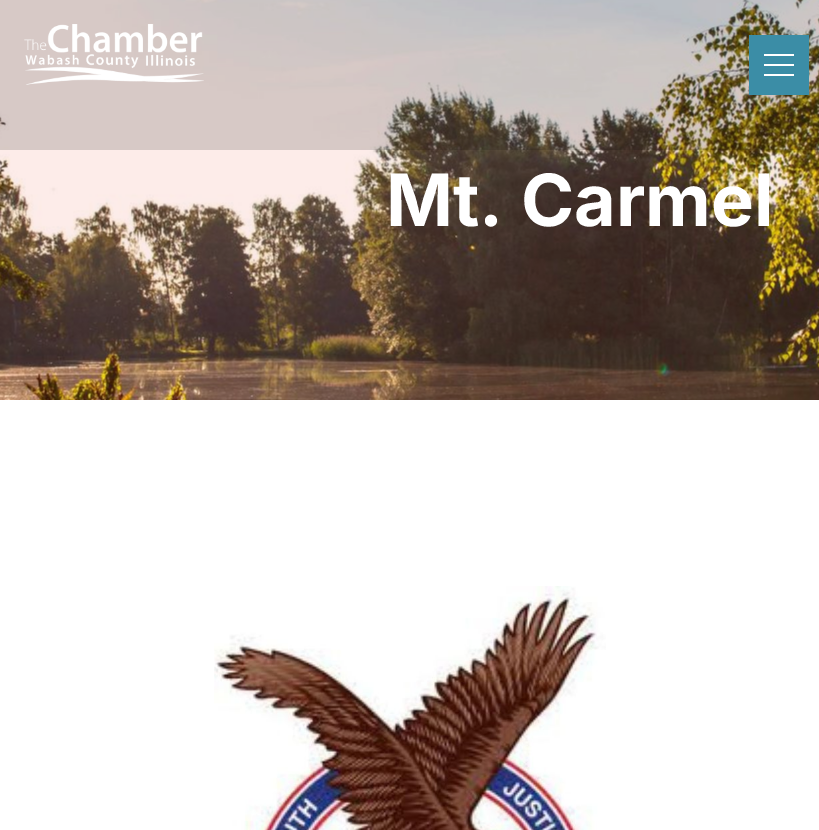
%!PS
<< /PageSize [819 830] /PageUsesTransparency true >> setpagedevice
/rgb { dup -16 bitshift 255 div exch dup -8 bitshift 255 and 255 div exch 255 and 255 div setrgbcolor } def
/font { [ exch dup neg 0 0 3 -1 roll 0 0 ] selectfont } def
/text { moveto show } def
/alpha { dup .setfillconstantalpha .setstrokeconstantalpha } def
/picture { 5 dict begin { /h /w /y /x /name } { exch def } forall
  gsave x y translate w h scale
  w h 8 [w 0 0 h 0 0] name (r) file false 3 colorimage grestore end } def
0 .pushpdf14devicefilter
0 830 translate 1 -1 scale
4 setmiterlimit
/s1 { /Inter-Bold 72 font 16#FFFFFF rgb } def
16#FFFFFF rgb
0 0 819 830 rectfill
(pic2.raw) 0 0 819 400 picture
0.15 alpha
16#000000 rgb
0 0 819 150 rectfill
1 alpha
(pic1.raw) 24 24 180 61 picture
16#3B8DA6 rgb
749 35 60 60 rectfill
16#FFFFFF rgb
764 64 30 2 rectfill
764 54 30 2 rectfill
764 74 30 2 rectfill
s1
(Mt. Carmel) 386 226 text
(pic3.raw) 214 586 392 244 picture
.poppdf14devicefilter showpage
